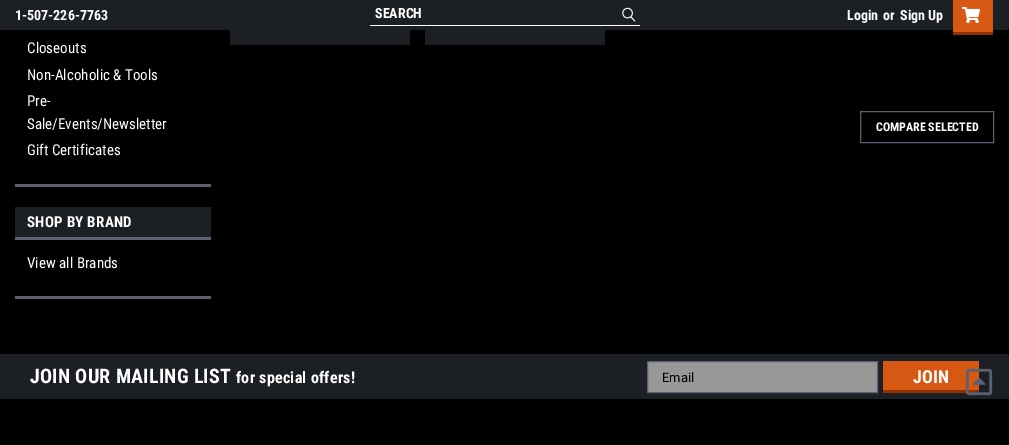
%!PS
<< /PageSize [1009 445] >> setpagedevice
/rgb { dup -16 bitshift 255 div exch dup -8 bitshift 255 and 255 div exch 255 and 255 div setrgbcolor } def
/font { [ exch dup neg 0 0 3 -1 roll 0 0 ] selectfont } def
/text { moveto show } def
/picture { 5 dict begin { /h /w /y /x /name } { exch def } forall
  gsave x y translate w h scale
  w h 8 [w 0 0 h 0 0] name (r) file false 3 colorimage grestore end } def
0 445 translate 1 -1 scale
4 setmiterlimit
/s1 { /RobotoCondensed-Bold 14 font 16#FFFFFF rgb } def
/s2 { /RobotoCondensed-Regular 15 font 16#FFFFFF rgb } def
/s3 { /RobotoCondensed-Bold 12 font 16#FFFFFF rgb } def
/s4 { /Roboto-Regular 13 font 16#000000 rgb } def
/s5 { /RobotoCondensed-Bold 18 font 16#FFFFFF rgb } def
16#000000 rgb
0 0 1009 445 rectfill
16#1C1F24 rgb
0 0 1009 30 rectfill
16#FFFFFF rgb
370 25 270 1 rectfill
s1
(SEARCH) 375 18 text
(pic1.raw) 622 7 14 15 picture
(1-507-226-7763) 15 20 text
(Login) 847 20 text
(or) 883 20 text
(Sign Up) 900 20 text
16#D75813 rgb
953 0 40 32 rectfill
16#8F3200 rgb
953 32 40 3 rectfill
(pic2.raw) 962 6 18 17 picture
16#5B6073 rgb
15 184 196 3 rectfill
s2
(Closeouts) 27 53 text
(Non-Alcoholic & Tools) 27 80 text
(Pre-) 27 106 text
(Sale/Events/Newsletter) 27 129 text
(Gift Certificates) 27 155 text
16#5B6073 rgb
15 296 196 3 rectfill
16#1C1F24 rgb
15 207 196 30 rectfill
16#5B6073 rgb
15 237 196 3 rectfill
/RobotoCondensed-Bold 15 font
16#FFFFFF rgb
27 227 moveto 0.25 0 (SHOP BY BRAND) ashow
s2
(View all Brands) 27 268 text
16#1C1F24 rgb
230 30 180 15 rectfill
425 30 180 15 rectfill
16#5B6073 rgb
860.5 111.5 133 31 rectstroke
s3
(COMPARE SELECTED) 876 131 text
16#1C1F24 rgb
0 354 1009 45 rectfill
/RobotoCondensed-Bold 20 font
16#FFFFFF rgb
30 383 moveto 0.25 0 (JOIN OUR MAILING LIST) ashow
/RobotoCondensed-Bold 16 font
236 383 moveto 0.25 0 (for special offers!) ashow
16#989898 rgb
647.5 361.5 moveto 877.5 361.5 lineto 877.5 392.5 lineto 647.5 392.5 lineto closepath gsave fill grestore
16#5B6073 rgb
stroke
s4
(Email) 662 382 text
16#D75813 rgb
883 361 96 29 rectfill
16#8F3200 rgb
883 390 96 3 rectfill
s5
(JOIN) 913 383 text
(pic3.raw) 965 368 28 28 picture
showpage
